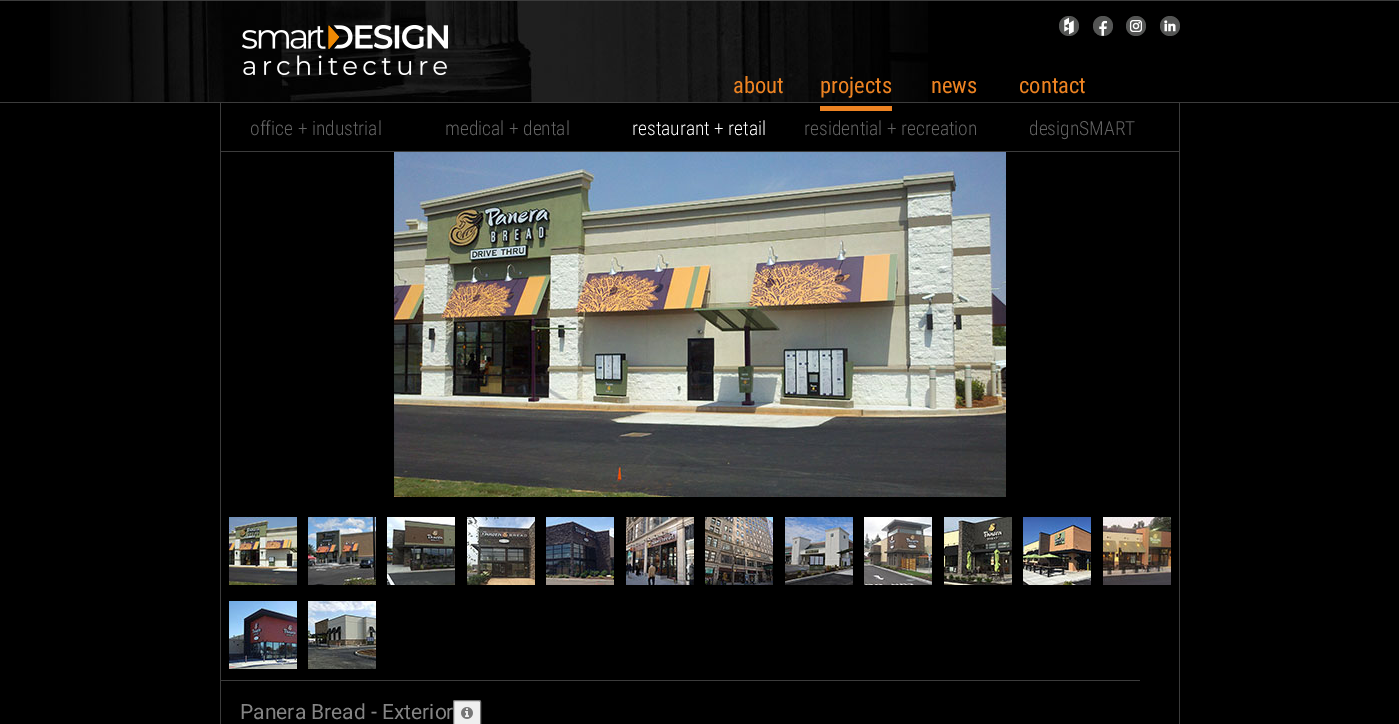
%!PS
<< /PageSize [1399 724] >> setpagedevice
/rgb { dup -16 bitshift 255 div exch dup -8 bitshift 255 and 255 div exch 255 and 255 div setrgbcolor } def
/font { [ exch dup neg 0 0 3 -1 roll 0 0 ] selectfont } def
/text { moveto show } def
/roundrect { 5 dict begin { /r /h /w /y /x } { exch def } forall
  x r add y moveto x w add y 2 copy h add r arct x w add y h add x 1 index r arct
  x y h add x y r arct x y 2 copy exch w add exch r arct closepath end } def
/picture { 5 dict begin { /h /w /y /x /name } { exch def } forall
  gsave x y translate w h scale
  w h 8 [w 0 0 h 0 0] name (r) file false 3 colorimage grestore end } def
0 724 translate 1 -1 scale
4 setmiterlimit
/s1 { /RobotoCondensed-Regular 22.5 font 16#ED8322 rgb } def
/s2 { /RobotoCondensed-Light 19.5 font 16#636363 rgb } def
/s3 { /RobotoCondensed-Light 19.5 font 16#FFFFFF rgb } def
/s4 { /Roboto-Regular 21 font 16#848484 rgb } def
16#000000 rgb
0 0 1399 724 rectfill
16#3C3C3C rgb
0 0 1399 1 rectfill
(pic1.raw) 50 1 878 101 picture
0 102 1399 1 rectfill
(pic2.raw) 242 25 206 50 picture
(pic3.raw) 1059 16 20 20 picture
(pic4.raw) 1093 16 20 21 picture
(pic5.raw) 1126 16 20 20 picture
(pic6.raw) 1160 16 20 20 picture
s1
(about) 733 93 text
(projects) 820 93 text
820 106 72 5 rectfill
(news) 931 93 text
(contact) 1019 93 text
16#3C3C3C rgb
1179 103 1 621 rectfill
220 103 1 621 rectfill
221 151 958 1 rectfill
s2
(office + industrial) 250 135 text
(medical + dental) 445 135 text
s3
(restaurant + retail) 632 135 text
s2
(residential + recreation) 804 135 text
(designSMART) 1029 135 text
(pic7.raw) 394 152 612 345 picture
(pic8.raw) 229 517 68 68 picture
(pic9.raw) 308 517 68 68 picture
(pic10.raw) 387 517 68 68 picture
(pic11.raw) 467 517 68 68 picture
(pic12.raw) 546 517 68 68 picture
(pic13.raw) 626 517 68 68 picture
(pic14.raw) 705 517 68 68 picture
(pic15.raw) 785 517 68 68 picture
(pic16.raw) 864 517 68 68 picture
(pic17.raw) 944 517 68 68 picture
(pic18.raw) 1023 517 68 68 picture
(pic19.raw) 1103 517 68 68 picture
(pic20.raw) 229 601 68 68 picture
(pic21.raw) 308 601 68 68 picture
16#3C3C3C rgb
221 680 919 1 rectfill
s4
(Panera Bread - Exterior) 240 719 text
16#EFEFEF rgb
453.5 700.5 27 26 1.5 roundrect gsave fill grestore
16#767676 rgb
stroke
(pic22.raw) 461 707 12 12 picture
showpage
